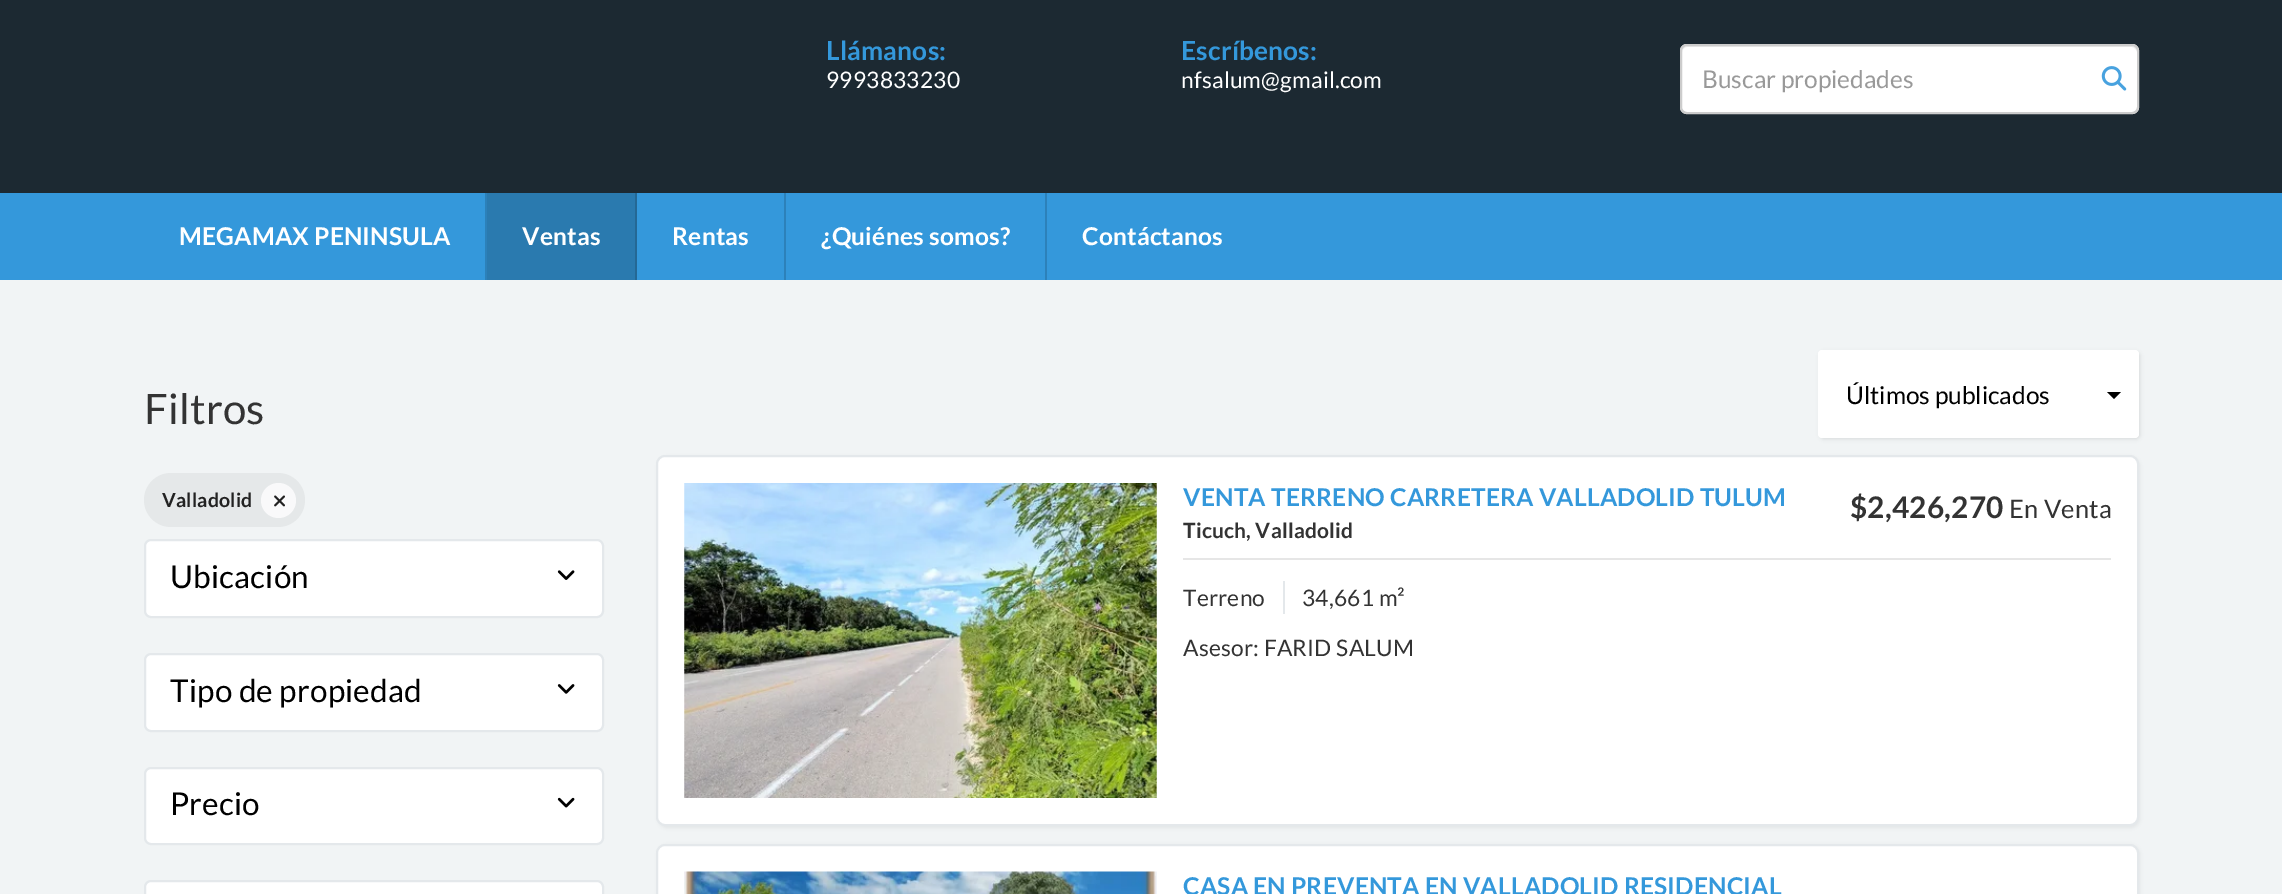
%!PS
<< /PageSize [2282 894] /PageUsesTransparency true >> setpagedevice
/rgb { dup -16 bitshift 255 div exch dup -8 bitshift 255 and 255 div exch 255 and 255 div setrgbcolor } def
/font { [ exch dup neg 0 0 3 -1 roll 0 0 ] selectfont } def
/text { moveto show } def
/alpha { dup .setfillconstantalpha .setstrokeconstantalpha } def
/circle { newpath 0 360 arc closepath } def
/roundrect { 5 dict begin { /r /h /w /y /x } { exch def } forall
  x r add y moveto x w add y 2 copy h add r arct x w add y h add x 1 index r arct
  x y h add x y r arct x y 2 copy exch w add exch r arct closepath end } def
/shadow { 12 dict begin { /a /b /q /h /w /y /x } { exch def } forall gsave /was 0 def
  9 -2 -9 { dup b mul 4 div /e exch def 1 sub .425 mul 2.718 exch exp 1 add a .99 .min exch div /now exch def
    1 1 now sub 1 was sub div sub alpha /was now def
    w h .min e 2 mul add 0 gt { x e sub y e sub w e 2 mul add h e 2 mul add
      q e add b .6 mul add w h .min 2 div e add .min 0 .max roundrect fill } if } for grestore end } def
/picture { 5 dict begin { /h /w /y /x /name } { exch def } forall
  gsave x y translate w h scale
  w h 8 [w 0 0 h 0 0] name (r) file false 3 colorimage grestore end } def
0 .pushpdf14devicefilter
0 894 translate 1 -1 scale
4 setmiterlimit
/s1 { /Lato-Regular 24.5 font 16#999999 rgb } def
/s2 { /Lato-Regular 24.5 font 16#000000 rgb } def
16#F1F4F5 rgb
0 0 2282 894 rectfill
16#1C2932 rgb
0 0 2282 193 rectfill
/Lato-Bold 26.25 font
16#3498DB rgb
826 60 moveto 0.2 0 (Llámanos:) ashow
/Lato-Regular 22.75 font
16#FFFFFF rgb
826 88 moveto 0.2 0 (9993833230) ashow
/Lato-Bold 26.25 font
16#3498DB rgb
1181 60 moveto 0.2 0 (Escríbenos:) ashow
/Lato-Regular 22.75 font
16#FFFFFF rgb
1181 88 moveto 0.2 0 (nfsalum@gmail.com) ashow
1680 44 459 70 7 roundrect fill
16#ECECEC rgb
1687 47 moveto 2132 47 lineto 2134 47 2137 50 2137 52 curveto 2137 49 2135 46 2132 46 curveto 1687 46 lineto 1684 46 1682 49 1682 52 curveto 1682 50 1684 47 1687 47 curveto closepath fill
16#CCCCCC rgb
2 setlinewidth
1681 45 457 68 6 roundrect stroke
s1
(Buscar propiedades) 1702 88 text
(pic1.raw) 2101 66 26 25 picture
16#3498DB rgb
0 193 2282 87 rectfill
16#2C81BA rgb
485 193 2 87 rectfill
/Lato-Bold 24.5 font
16#FFFFFF rgb
179 245 moveto 0.2 0 (MEGAMAX PENINSULA) ashow
16#2A7AAF rgb
487 193 148 87 rectfill
16#246895 rgb
635 193 2 87 rectfill
16#FFFFFF rgb
522 245 moveto 0.2 0 (Ventas) ashow
16#2C81BA rgb
784 193 2 87 rectfill
16#FFFFFF rgb
672 245 moveto 0.2 0 (Rentas) ashow
16#2C81BA rgb
1045 193 2 87 rectfill
16#FFFFFF rgb
821 245 moveto 0.2 0 (¿Quiénes somos?) ashow
1082 245 moveto 0.2 0 (Contáctanos) ashow
/Lato-Regular 42 font
16#333333 rgb
144 424 moveto 0.2 0 (Filtros) ashow
16#E5E8E9 rgb
144 473 161 54 27 roundrect fill
/Lato-Bold 19.5 font
16#222222 rgb
162 507 moveto 0.2 0 (Valladolid) ashow
16#F9F9FA rgb
278.5 500.5 17.5 circle fill
(pic2.raw) 274 495 11 12 picture
16#FFFFFF rgb
145 540 458 77 6 roundrect gsave fill grestore
16#E4E8EB rgb
stroke
/Lato-Regular 31.5 font
16#000000 rgb
170 588 moveto 0.2 0 (Ubicación) ashow
(pic3.raw) 557 570 18 10 picture
16#FFFFFF rgb
145 654 458 77 6 roundrect gsave fill grestore
16#E4E8EB rgb
stroke
16#000000 rgb
170 702 moveto 0.2 0 (Tipo de propiedad) ashow
(pic4.raw) 557 684 18 10 picture
16#FFFFFF rgb
145 768 458 76 6 roundrect gsave fill grestore
16#E4E8EB rgb
stroke
16#000000 rgb
170 815 moveto 0.2 0 (Precio) ashow
(pic5.raw) 557 797 18 11 picture
16#FFFFFF rgb
145 881 458 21 6 roundrect gsave fill grestore
16#E4E8EB rgb
stroke
16#000000 rgb
1820 352 320 87 4 2 0.1 shadow
16#FFFFFF rgb
1818 350 321 88 4 roundrect fill
s2
(Últimos publicados) 1846 404 text
2107 392 moveto 2121 392 lineto 2114 399 lineto closepath fill
658 457 1482 371 9 2 0.05 shadow
16#FFFFFF rgb
657 456 1481 369 8 roundrect gsave fill grestore
16#E4E8EB rgb
stroke
(pic6.raw) 684 483 473 315 picture
16#E6E6E6 rgb
1183 558 928 2 rectfill
/Lato-Bold 24.5 font
16#3498DB rgb
1183 506 moveto 0.2 0 (VENTA TERRENO CARRETERA VALLADOLID TULUM) ashow
/Lato-Bold 29.75 font
16#333333 rgb
1850 518 moveto 0.2 0 ($2,426,270) ashow
/Lato-Regular 25.5 font
2009 518 moveto 0.2 0 (En Venta) ashow
/Lato-Bold 21 font
1183 538 moveto 0.2 0 (Ticuch, Valladolid) ashow
/Lato-Regular 22.75 font
1183 606 moveto 0.2 0 (Terreno) ashow
16#E4E8EB rgb
1283 581 2 33 rectfill
16#333333 rgb
1302 606 moveto 0.2 0 (34,661 m²) ashow
1183 656 moveto 0.2 0 (Asesor: FARID SALUM) ashow
16#000000 rgb
658 845 1482 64 9 2 0.05 shadow
16#FFFFFF rgb
657 845 1481 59 8 roundrect gsave fill grestore
16#E4E8EB rgb
stroke
(pic7.raw) 684 871 473 23 picture
/Lato-Bold 24.5 font
16#3498DB rgb
1183 895 moveto 0.2 0 (CASA EN PREVENTA EN VALLADOLID RESIDENCIAL) ashow
.poppdf14devicefilter showpage
